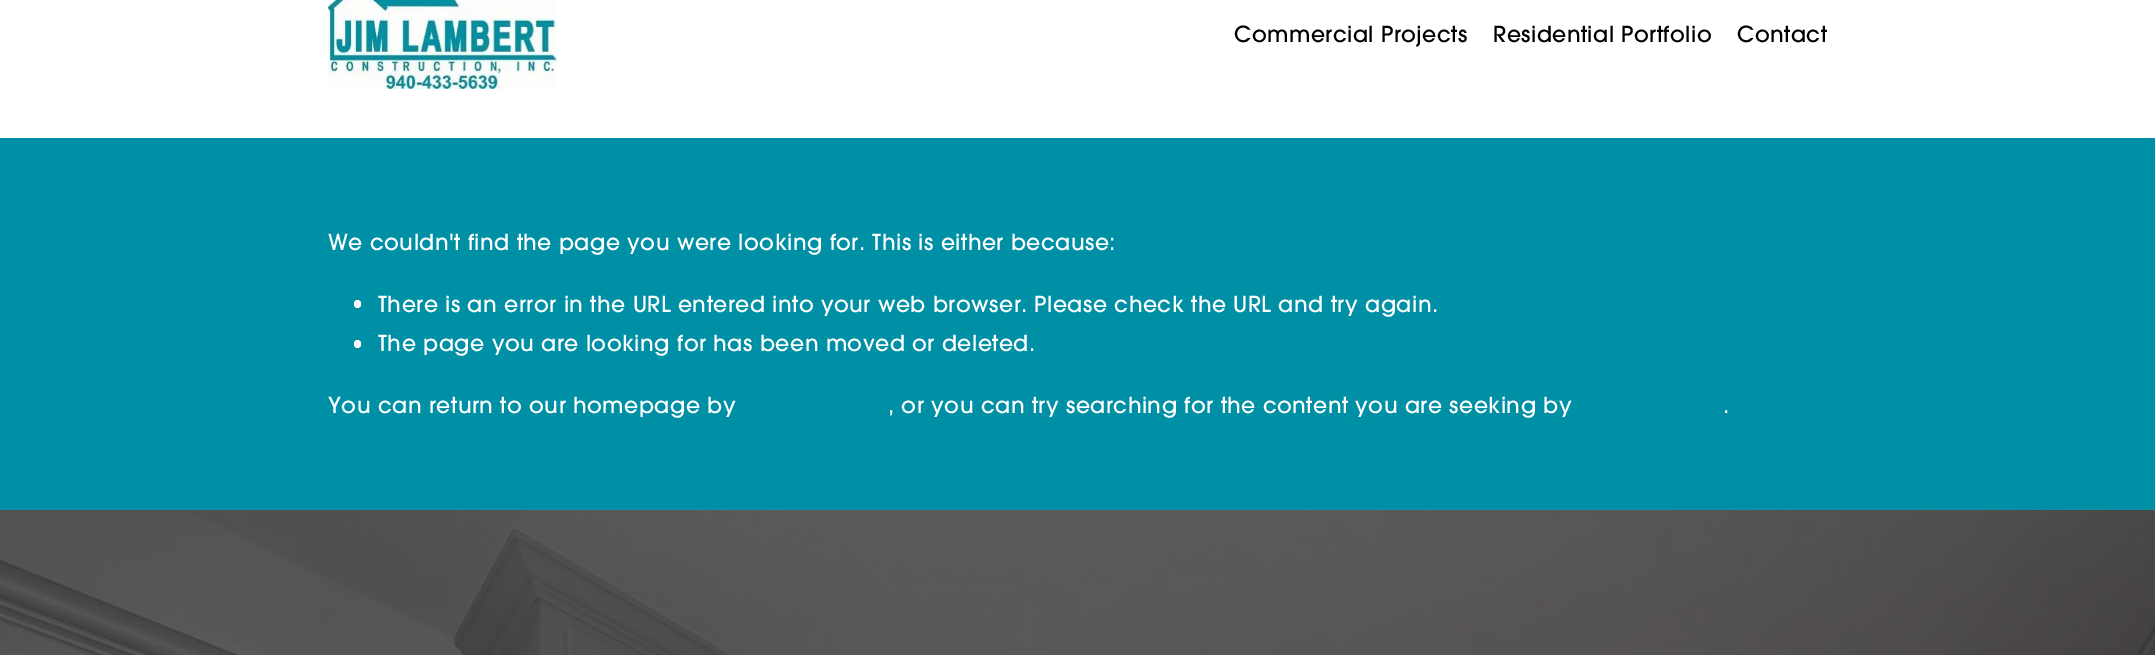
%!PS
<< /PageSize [2155 655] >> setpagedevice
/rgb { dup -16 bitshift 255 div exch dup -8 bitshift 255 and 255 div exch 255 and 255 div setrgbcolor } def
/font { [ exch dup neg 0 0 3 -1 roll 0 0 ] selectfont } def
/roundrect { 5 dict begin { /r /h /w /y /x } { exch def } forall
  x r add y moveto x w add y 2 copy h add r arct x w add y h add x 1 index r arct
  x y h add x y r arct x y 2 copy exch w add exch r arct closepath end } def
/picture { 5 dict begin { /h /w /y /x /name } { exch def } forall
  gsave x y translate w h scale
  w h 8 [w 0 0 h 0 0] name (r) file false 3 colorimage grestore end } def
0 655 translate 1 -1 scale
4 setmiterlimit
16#0090A5 rgb
0 0 2155 655 rectfill
16#FFFFFF rgb
0 0 2155 138 rectfill
(pic1.raw) 328 0 229 89 picture
/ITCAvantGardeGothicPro-Medium 22 font
16#000000 rgb
1234 42 moveto 0.45 0 (Commercial Projects) ashow
1493 42 moveto 0.45 0 (Residential Portfolio) ashow
1737 42 moveto 0.45 0 (Contact) ashow
16#FFFFFF rgb
328 250 moveto 0.45 0 (We couldn't find the page you were looking for. This is either because:) ashow
354 300 7 8 3.5 roundrect fill
378 312 moveto 0.45 0 (There is an error in the URL entered into your web browser. Please check the URL and try again.) ashow
354 340 7 8 3.5 roundrect fill
378 351 moveto 0.45 0 (The page you are looking for has been moved or deleted.) ashow
328 413 moveto 0.45 0 (You can return to our homepage by) ashow
888 413 moveto 0.45 0 (, or you can try searching for the content you are seeking by) ashow
1723 413 moveto 0.45 0 (.) ashow
(pic2.raw) 0 509 2155 146 picture
showpage
